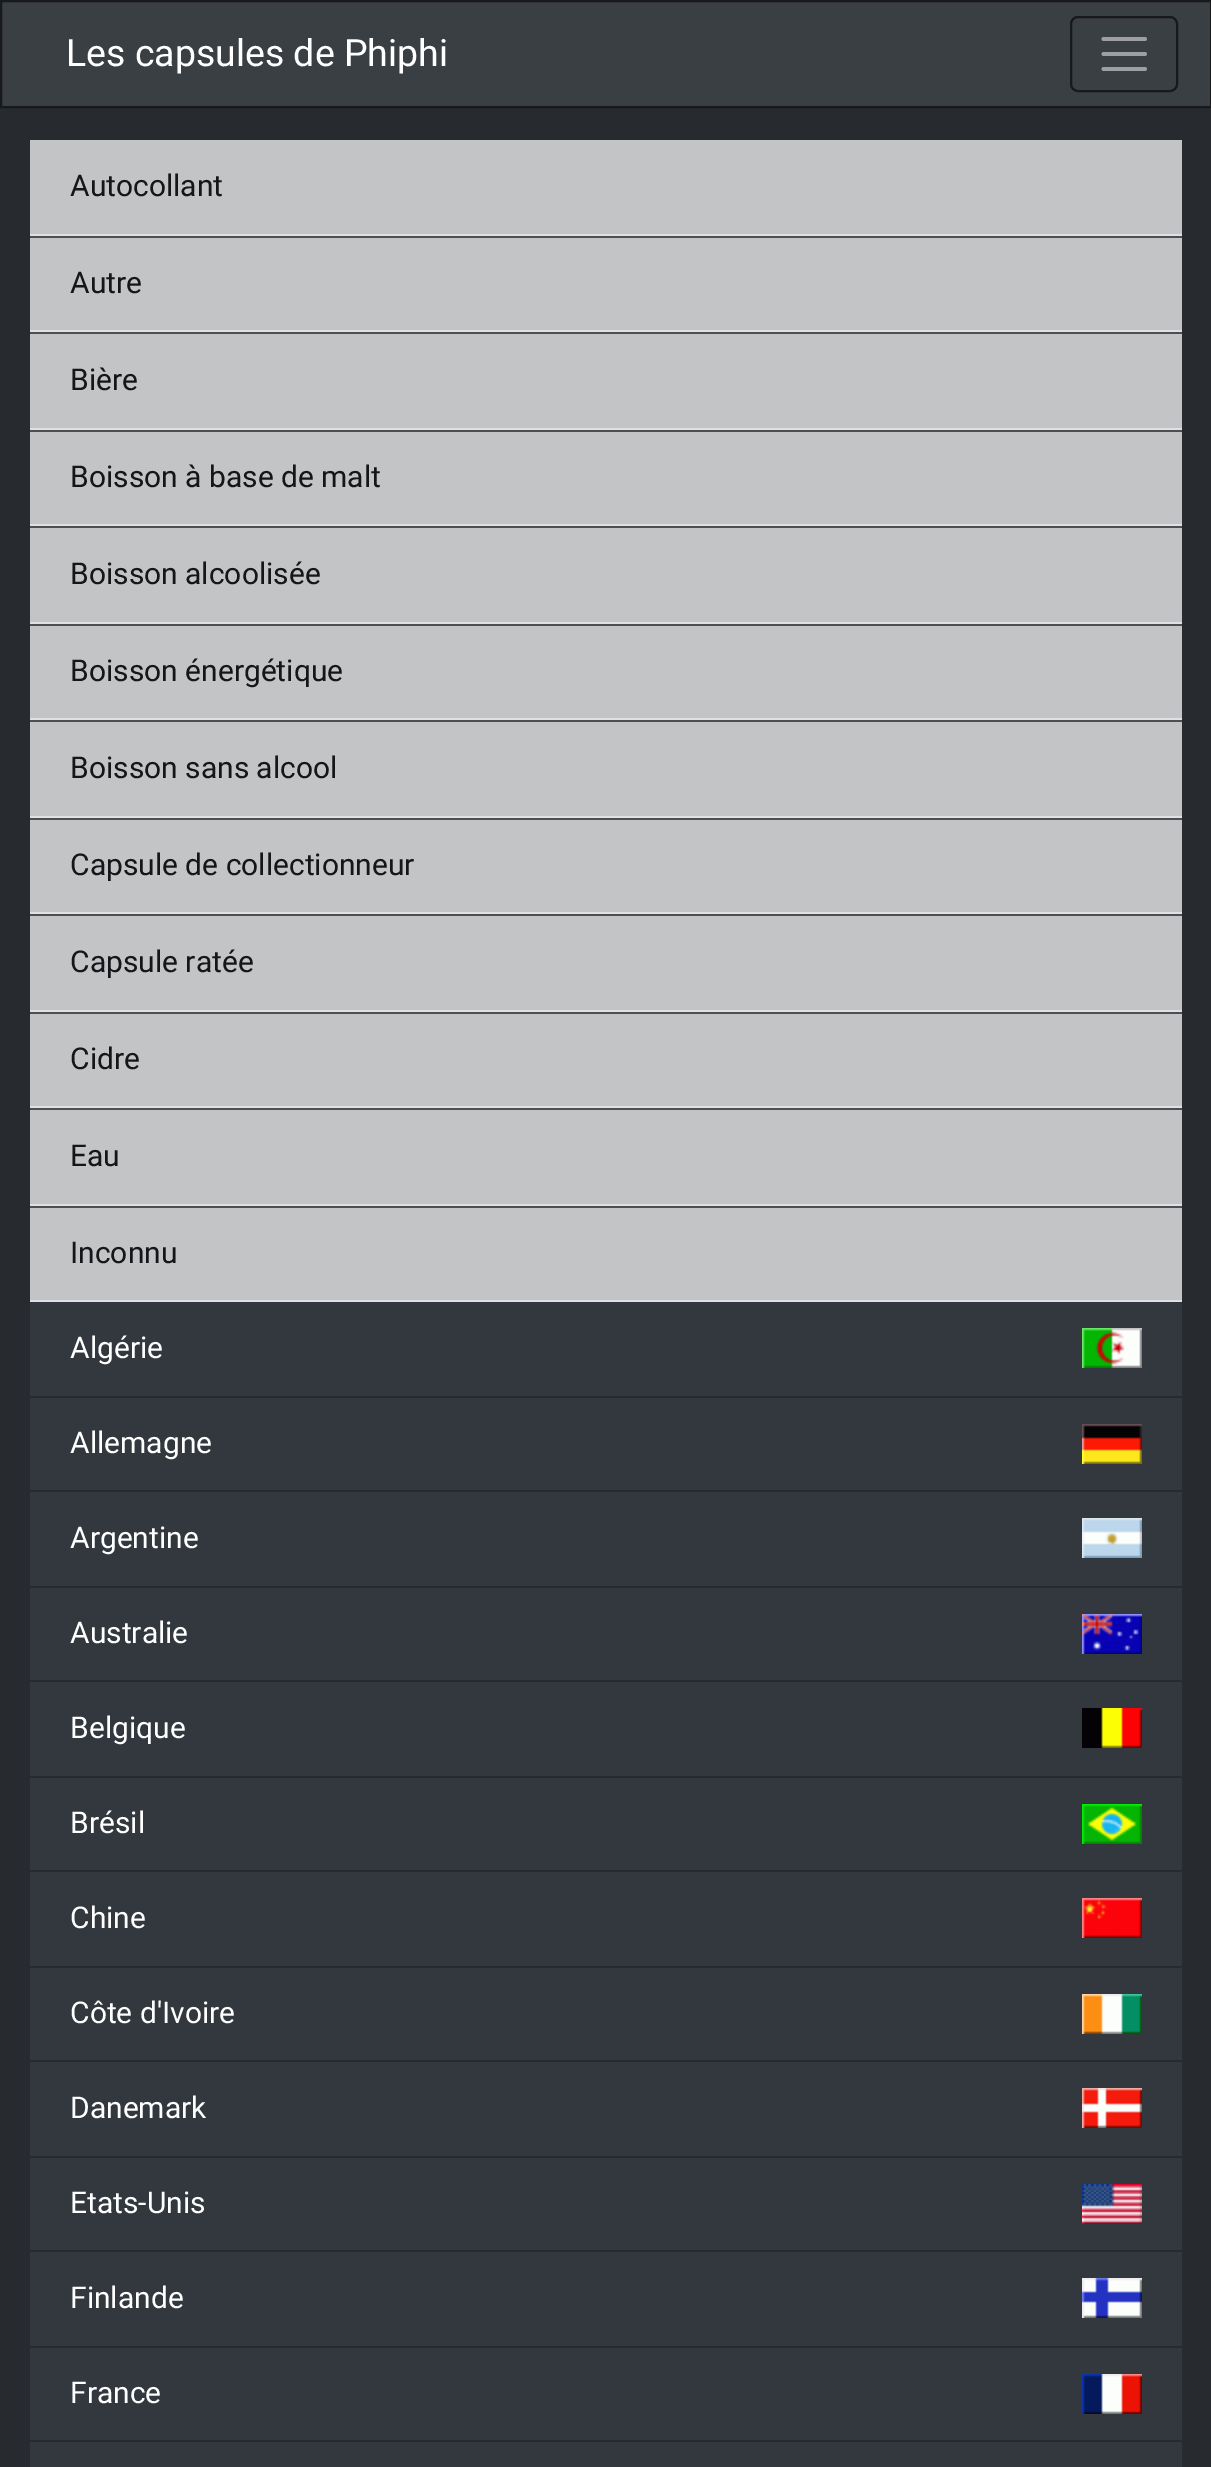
%!PS
<< /PageSize [1211 2467] >> setpagedevice
/rgb { dup -16 bitshift 255 div exch dup -8 bitshift 255 and 255 div exch 255 and 255 div setrgbcolor } def
/font { [ exch dup neg 0 0 3 -1 roll 0 0 ] selectfont } def
/text { moveto show } def
/roundrect { 5 dict begin { /r /h /w /y /x } { exch def } forall
  x r add y moveto x w add y 2 copy h add r arct x w add y h add x 1 index r arct
  x y h add x y r arct x y 2 copy exch w add exch r arct closepath end } def
/picture { 5 dict begin { /h /w /y /x /name } { exch def } forall
  gsave x y translate w h scale
  w h 8 [w 0 0 h 0 0] name (r) file false 3 colorimage grestore end } def
0 2467 translate 1 -1 scale
4 setmiterlimit
/s1 { /Roboto-Regular 37.5 font 16#FFFFFF rgb } def
/s2 { /Roboto-Regular 30 font 16#141619 rgb } def
/s3 { /Roboto-Regular 30 font 16#FFFFFF rgb } def
16#272B30 rgb
0 0 1211 2467 rectfill
16#3A3F44 rgb
1 1 moveto 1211 1 lineto 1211 107 lineto 1 107 lineto closepath gsave fill grestore
16#17191B rgb
2 setlinewidth
stroke
s1
(Les capsules de Phiphi) 66 66 text
16#17191B rgb
1071 17 106 74 7 roundrect stroke
16#9D9FA2 rgb
3.8 setlinewidth
1 setlinecap
1103.5 39 moveto 1145 39 lineto 1103.5 54 moveto 1145 54 lineto 1103.5 69 moveto 1145 69 lineto stroke
16#C3C4C5 rgb
30 140 1152 94 rectfill
16#DEE2E6 rgb
30 234 1152 2 rectfill
s2
(Autocollant) 70 196 text
16#C3C4C5 rgb
30 238 1152 92 rectfill
16#4E4E4F rgb
30 236 1152 2 rectfill
16#DEE2E6 rgb
30 330 1152 2 rectfill
s2
(Autre) 70 293 text
16#C3C4C5 rgb
30 334 1152 94 rectfill
16#4E4E4F rgb
30 332 1152 2 rectfill
16#DEE2E6 rgb
30 428 1152 2 rectfill
s2
(Bière) 70 390 text
16#C3C4C5 rgb
30 432 1152 92 rectfill
16#4E4E4F rgb
30 430 1152 2 rectfill
16#DEE2E6 rgb
30 524 1152 2 rectfill
s2
(Boisson à base de malt) 70 487 text
16#C3C4C5 rgb
30 528 1152 94 rectfill
16#4E4E4F rgb
30 526 1152 2 rectfill
16#DEE2E6 rgb
30 622 1152 2 rectfill
s2
(Boisson alcoolisée) 70 584 text
16#C3C4C5 rgb
30 626 1152 92 rectfill
16#4E4E4F rgb
30 624 1152 2 rectfill
16#DEE2E6 rgb
30 718 1152 2 rectfill
s2
(Boisson énergétique) 70 681 text
16#C3C4C5 rgb
30 722 1152 94 rectfill
16#4E4E4F rgb
30 720 1152 2 rectfill
16#DEE2E6 rgb
30 816 1152 2 rectfill
s2
(Boisson sans alcool) 70 778 text
16#C3C4C5 rgb
30 820 1152 92 rectfill
16#4E4E4F rgb
30 818 1152 2 rectfill
16#DEE2E6 rgb
30 912 1152 2 rectfill
s2
(Capsule de collectionneur) 70 875 text
16#C3C4C5 rgb
30 916 1152 94 rectfill
16#4E4E4F rgb
30 914 1152 2 rectfill
16#DEE2E6 rgb
30 1010 1152 2 rectfill
s2
(Capsule ratée) 70 972 text
16#C3C4C5 rgb
30 1014 1152 92 rectfill
16#4E4E4F rgb
30 1012 1152 2 rectfill
16#DEE2E6 rgb
30 1106 1152 2 rectfill
s2
(Cidre) 70 1069 text
16#C3C4C5 rgb
30 1110 1152 94 rectfill
16#4E4E4F rgb
30 1108 1152 2 rectfill
16#DEE2E6 rgb
30 1204 1152 2 rectfill
s2
(Eau) 70 1166 text
16#C3C4C5 rgb
30 1208 1152 92 rectfill
16#4E4E4F rgb
30 1206 1152 2 rectfill
16#DEE2E6 rgb
30 1300 1152 2 rectfill
s2
(Inconnu) 70 1263 text
16#32383E rgb
30 1302 1152 94 rectfill
s3
(Algérie) 70 1358 text
(pic1.raw) 1082 1328 60 40 picture
16#32383E rgb
30 1398 1152 92 rectfill
s3
(Allemagne) 70 1453 text
(pic2.raw) 1082 1424 60 40 picture
16#32383E rgb
30 1492 1152 94 rectfill
s3
(Argentine) 70 1548 text
(pic3.raw) 1082 1518 60 40 picture
16#32383E rgb
30 1588 1152 92 rectfill
s3
(Australie) 70 1643 text
(pic4.raw) 1082 1614 60 40 picture
16#32383E rgb
30 1682 1152 94 rectfill
s3
(Belgique) 70 1738 text
(pic5.raw) 1082 1708 60 40 picture
16#32383E rgb
30 1778 1152 92 rectfill
s3
(Brésil) 70 1833 text
(pic6.raw) 1082 1804 60 40 picture
16#32383E rgb
30 1872 1152 94 rectfill
s3
(Chine) 70 1928 text
(pic7.raw) 1082 1898 60 40 picture
16#32383E rgb
30 1968 1152 92 rectfill
s3
(Côte d'Ivoire) 70 2023 text
(pic8.raw) 1082 1994 60 40 picture
16#32383E rgb
30 2062 1152 94 rectfill
s3
(Danemark) 70 2118 text
(pic9.raw) 1082 2088 60 40 picture
16#32383E rgb
30 2158 1152 92 rectfill
s3
(Etats-Unis) 70 2213 text
(pic10.raw) 1082 2184 60 40 picture
16#32383E rgb
30 2252 1152 94 rectfill
s3
(Finlande) 70 2308 text
(pic11.raw) 1082 2278 60 40 picture
16#32383E rgb
30 2348 1152 92 rectfill
s3
(France) 70 2403 text
(pic12.raw) 1082 2374 60 40 picture
16#32383E rgb
30 2442 1152 25 rectfill
showpage
